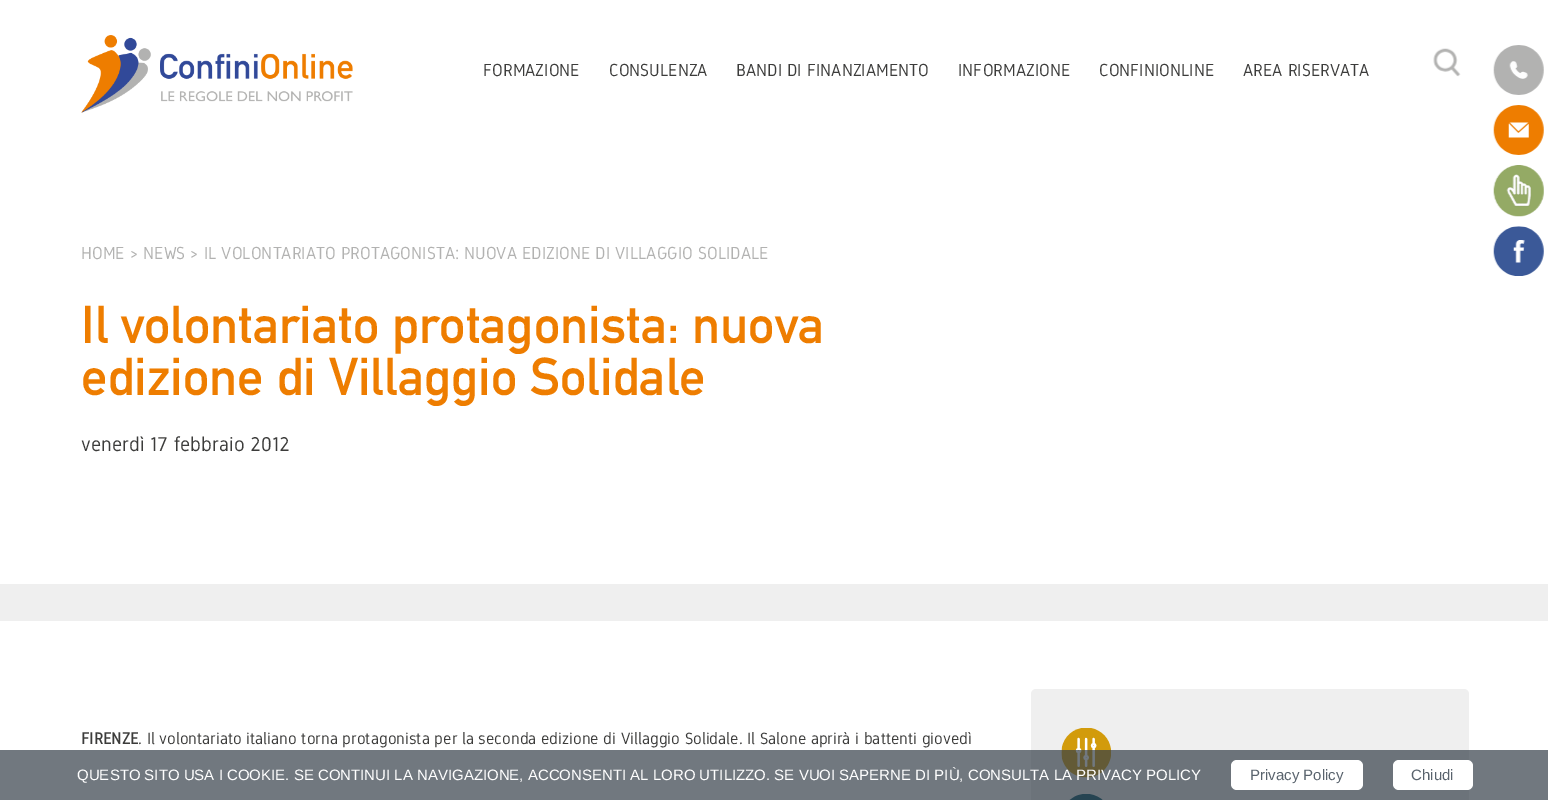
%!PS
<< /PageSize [1548 800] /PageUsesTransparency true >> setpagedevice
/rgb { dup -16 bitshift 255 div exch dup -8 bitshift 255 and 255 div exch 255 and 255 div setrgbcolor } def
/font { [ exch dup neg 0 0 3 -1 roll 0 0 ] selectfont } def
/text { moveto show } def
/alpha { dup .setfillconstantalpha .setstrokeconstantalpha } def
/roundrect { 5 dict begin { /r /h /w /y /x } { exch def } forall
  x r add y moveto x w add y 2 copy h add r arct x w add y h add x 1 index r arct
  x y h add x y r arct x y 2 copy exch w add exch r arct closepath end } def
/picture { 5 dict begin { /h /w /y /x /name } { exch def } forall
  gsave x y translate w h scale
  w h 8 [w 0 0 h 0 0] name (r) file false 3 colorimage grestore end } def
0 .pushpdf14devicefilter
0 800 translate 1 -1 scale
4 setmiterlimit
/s1 { /Gidole-Regular 17.5 font 16#3C3C3B rgb } def
/s2 { /Gidole-Regular 17.5 font 16#B2B2B1 rgb } def
/s3 { /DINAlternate-Bold 52.5 font 16#EE7D00 rgb } def
/s4 { /Gidole-Regular 20 font 16#3C3C3B rgb } def
/s5 { /Gidole-Bold 16.25 font 16#3C3C3B rgb } def
/s6 { /Gidole-Regular 16.25 font 16#3C3C3B rgb } def
/s7 { /LiberationSans-Regular 15 font 16#FFFFFF rgb } def
/s8 { /LiberationSans-Regular 15 font 16#59636D rgb } def
16#FFFFFF rgb
0 0 1548 800 rectfill
(pic1.raw) 81 35 272 78 picture
s1
(FORMAZIONE) 483 76 text
(CONSULENZA) 609 76 text
(BANDI DI FINANZIAMENTO) 736 76 text
(INFORMAZIONE) 958 76 text
(CONFINIONLINE) 1099 76 text
(AREA RISERVATA) 1243 76 text
(pic2.raw) 1493 45 51 50 picture
(pic3.raw) 1493 105 51 50 picture
(pic4.raw) 1493 165 51 52 picture
(pic5.raw) 1493 226 51 50 picture
(pic6.raw) 1433 48 28 29 picture
s2
(HOME > NEWS > IL VOLONTARIATO PROTAGONISTA: NUOVA EDIZIONE DI VILLAGGIO SOLIDALE) 81 259 text
s3
(Il volontariato protagonista: nuova) 81 343 text
(edizione di Villaggio Solidale) 81 395 text
s4
(venerdì 17 febbraio 2012) 81 451 text
16#EFEFEF rgb
0 584 1548 37 rectfill
s5
(FIRENZE) 81 744 text
s6
(. Il volontariato italiano torna protagonista per la seconda edizione di Villaggio Solidale. Il Salone aprirà i battenti giovedì) 138 744 text
16#EFEFEF rgb
1031 689 438 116 5 roundrect fill
(pic7.raw) 1061 728 50 50 picture
(pic8.raw) 1069 794 34 6 picture
0.7 alpha
16#343F48 rgb
0 750 1548 50 rectfill
1 alpha
s7
(QUESTO SITO USA I COOKIE. SE CONTINUI LA NAVIGAZIONE, ACCONSENTI AL LORO UTILIZZO. SE VUOI SAPERNE DI PIÙ, CONSULTA LA PRIVACY POLICY) 77 780 text
1231 760 132 30 6 roundrect fill
s8
(Privacy Policy) 1250 780 text
16#FFFFFF rgb
1393 760 80 30 6 roundrect fill
s8
(Chiudi) 1411 780 text
.poppdf14devicefilter showpage
